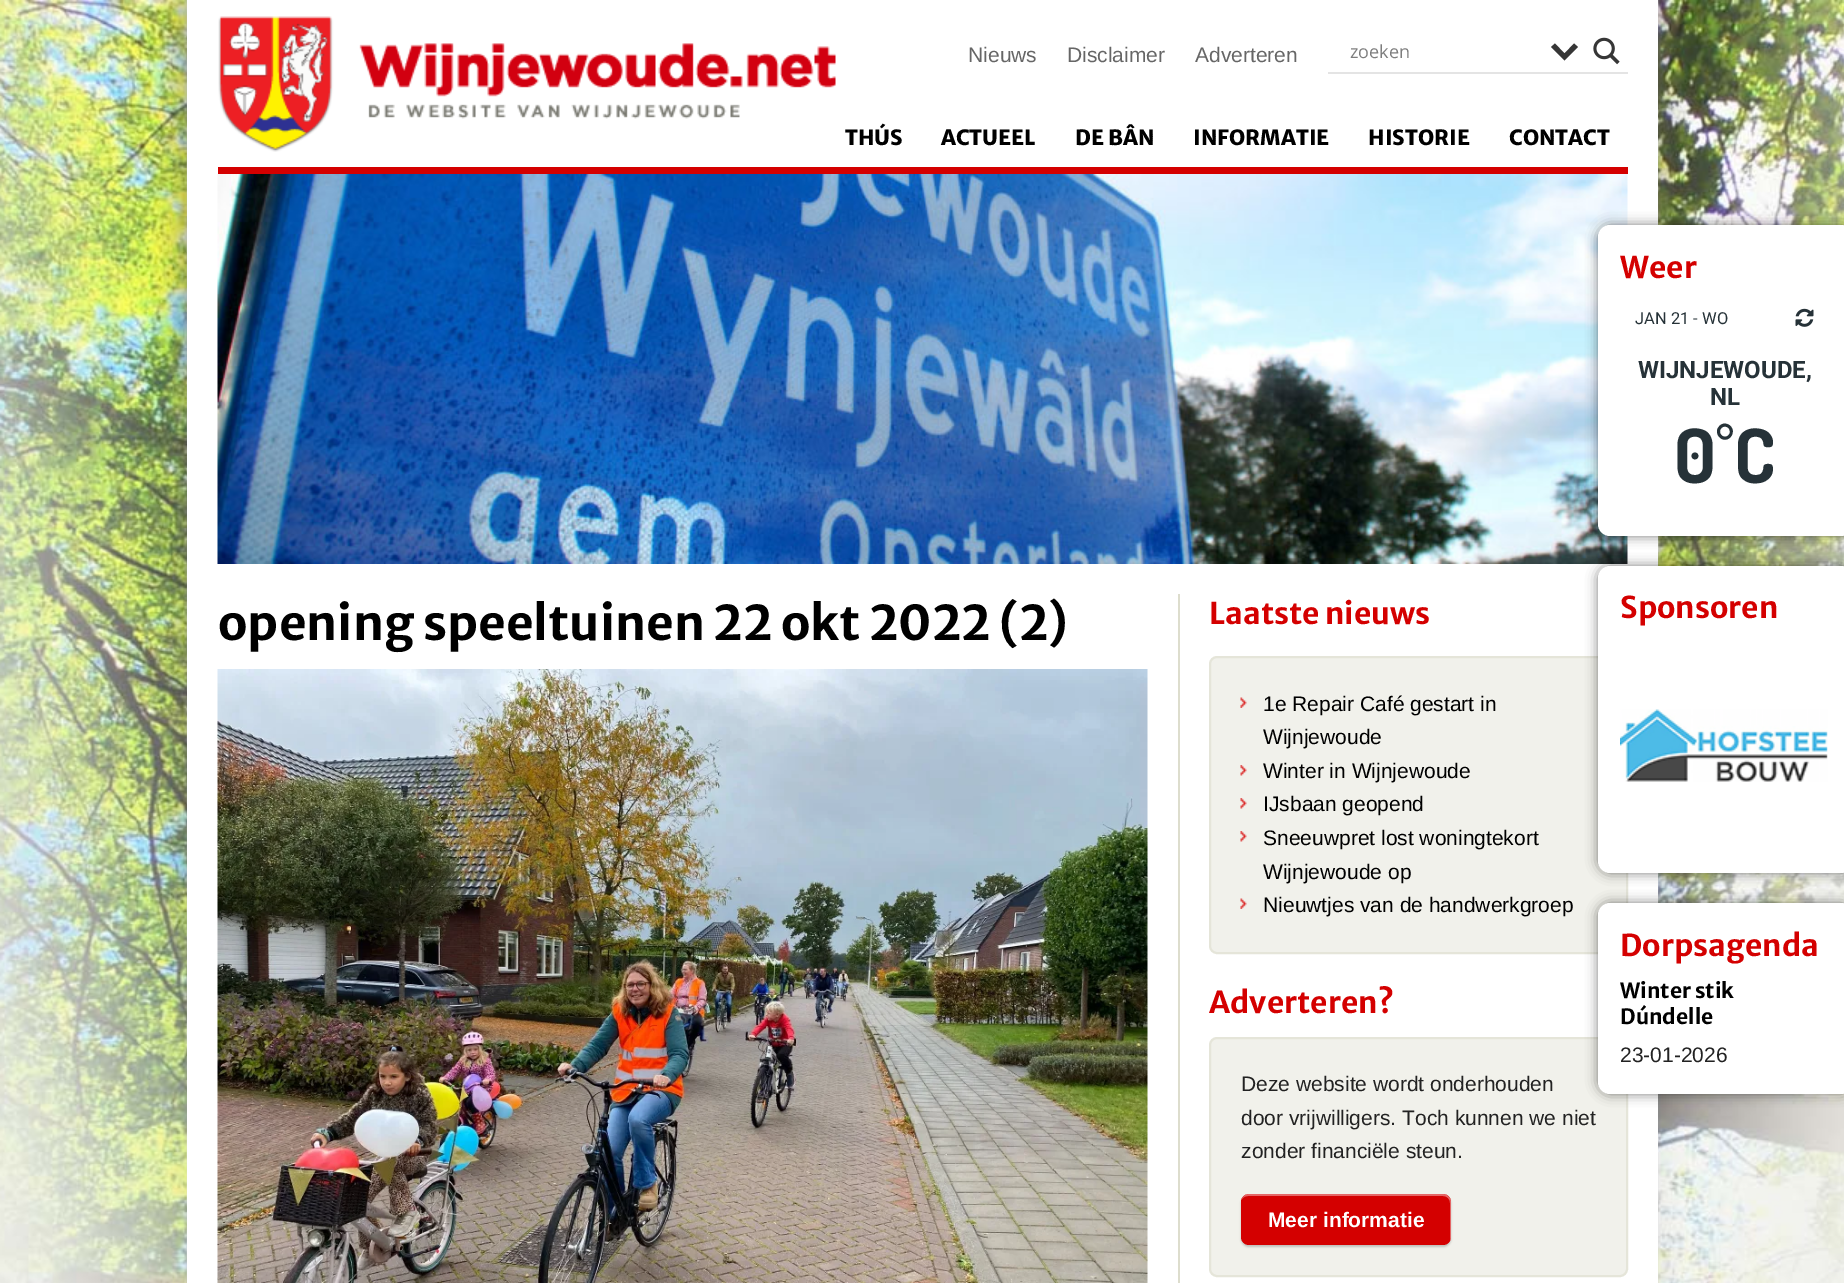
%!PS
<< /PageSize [1844 1283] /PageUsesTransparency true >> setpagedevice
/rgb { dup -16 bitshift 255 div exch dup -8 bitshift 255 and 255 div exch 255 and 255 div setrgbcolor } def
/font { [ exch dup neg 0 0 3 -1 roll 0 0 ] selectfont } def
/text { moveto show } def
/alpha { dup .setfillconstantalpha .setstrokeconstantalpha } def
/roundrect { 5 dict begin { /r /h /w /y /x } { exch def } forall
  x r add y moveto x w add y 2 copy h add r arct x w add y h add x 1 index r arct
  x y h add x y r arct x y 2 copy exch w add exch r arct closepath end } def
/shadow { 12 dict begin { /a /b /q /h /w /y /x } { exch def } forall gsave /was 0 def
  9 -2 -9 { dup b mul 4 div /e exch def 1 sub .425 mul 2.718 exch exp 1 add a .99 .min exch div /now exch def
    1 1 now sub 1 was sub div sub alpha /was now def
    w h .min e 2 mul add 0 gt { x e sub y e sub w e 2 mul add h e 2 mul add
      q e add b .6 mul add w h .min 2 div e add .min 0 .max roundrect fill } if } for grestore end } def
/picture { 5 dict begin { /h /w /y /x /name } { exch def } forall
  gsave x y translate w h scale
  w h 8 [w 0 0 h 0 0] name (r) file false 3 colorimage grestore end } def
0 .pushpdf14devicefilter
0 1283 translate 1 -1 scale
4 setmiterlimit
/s1 { /LiberationSans-Regular 21 font 16#666666 rgb } def
/s2 { /OpenSans-Regular 18 font 16#7D7D7D rgb } def
/s3 { /MerriweatherSans-ExtraBold 21 font 16#000000 rgb } def
/s4 { /MerriweatherSans-Bold 48 font 16#000000 rgb } def
/s5 { /MerriweatherSans-Bold 30 font 16#D40000 rgb } def
/s6 { /LiberationSans-Regular 21 font 16#000000 rgb } def
/s7 { /LiberationSans-Regular 21 font 16#222222 rgb } def
/s8 { /LiberationSans-Bold 21 font 16#FFFFFF rgb } def
/s9 { /Roboto-Regular 16.5 font 16#263238 rgb } def
/s10 { /Roboto-Bold 24 font 16#263238 rgb } def
/s11 { /Dosis-Bold 75 font 16#263238 rgb } def
/s12 { /Dosis-Bold 45 font 16#263238 rgb } def
/s13 { /MerriweatherSans-Bold 21 font 16#000000 rgb } def
16#FFFFFF rgb
0 0 1844 1283 rectfill
(pic1.raw) 0 0 1844 1283 picture
187 0 1471 1283 rectfill
(pic2.raw) 218 16 618 136 picture
s1
(Nieuws) 968 62 text
(Disclaimer) 1067 62 text
(Adverteren) 1195 62 text
16#E4E4E4 rgb
1328 72 moveto 1328 74 lineto 1628 74 lineto 1628 32 lineto 1628 72 lineto closepath fill
s2
(zoeken) 1350 58 text
16#363636 rgb
1574 43.5 moveto 1578 47 lineto 1564.5 60.5 lineto 1551 47 lineto 1555 43.5 lineto 1564.5 53.5 lineto closepath fill
(pic3.raw) 1593 37 27 28 picture
16#D40000 rgb
218 167 1410 7 rectfill
s3
(THÚS) 845 145 text
(ACTUEEL) 941 145 text
(DE BÂN) 1075 145 text
(INFORMATIE) 1193 145 text
(HISTORIE) 1368 145 text
(CONTACT) 1509 145 text
(pic4.raw) 217 174 1411 390 picture
s4
(opening speeltuinen 22 okt 2022 \(2\)) 218 640 text
(pic5.raw) 217 669 931 614 picture
16#DDDDCD rgb
1178 594 2 689 rectfill
s5
(Laatste nieuws) 1209 624 text
16#F1F1EB rgb
1210 657 417 296 7 roundrect gsave fill grestore
16#E5E5D9 rgb
2 setlinewidth
stroke
(pic6.raw) 1240 697 7 11 picture
s6
(1e Repair Café gestart in) 1263 711 text
(Wijnjewoude) 1263 744 text
(pic7.raw) 1240 765 7 11 picture
(Winter in Wijnjewoude) 1263 778 text
(pic7.raw) 1240 798 7 11 picture
(IJsbaan geopend) 1263 811 text
(pic7.raw) 1240 831 7 11 picture
(Sneeuwpret lost woningtekort) 1263 845 text
(Wijnjewoude op) 1263 879 text
(pic6.raw) 1240 898 7 11 picture
(Nieuwtjes van de handwerkgroep) 1263 912 text
s5
(Adverteren?) 1209 1013 text
16#F1F1EB rgb
1210 1038 417 238 7 roundrect gsave fill grestore
16#E5E5D9 rgb
stroke
s7
(Deze website wordt onderhouden) 1241 1091 text
(door vrijwilligers. Toch kunnen we niet) 1241 1125 text
(zonder financiële steun.) 1241 1158 text
16#000000 rgb
1241 1196 210 51 8 1 0.2 shadow
16#D40000 rgb
1241 1194 210 51 8 roundrect fill
0.4 alpha
16#FFFFFF rgb
1248 1196 moveto 1443 1196 lineto 1447 1196 1450 1199 1450 1203 curveto 1450 1239 lineto 1450 1242 lineto 1450 1240 1451 1239 1451 1237 curveto 1451 1202 lineto 1451 1198 1447 1194 1443 1194 curveto 1249 1194 lineto 1246 1194 1243 1196 1242 1199 curveto 1243 1197 1246 1196 1248 1196 curveto closepath fill
1 alpha
s8
(Meer informatie) 1268 1227 text
16#000000 rgb
1598 225 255 311 12 6 0.5 shadow
16#FFFFFF rgb
1598 225 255 311 12 roundrect fill
s5
(Weer) 1620 278 text
s9
(JAN 21 - WO) 1635 324 text
(pic8.raw) 1795 308 19 19 picture
s10
(WIJNJEWOUDE,) 1638 378 text
(NL) 1710 405 text
s11
(0) 1674 483 text
s12
(°) 1716 458 text
s11
(C) 1734 483 text
16#000000 rgb
1598 566 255 307 12 6 0.5 shadow
16#FFFFFF rgb
1598 566 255 307 12 roundrect fill
s5
(Sponsoren) 1620 618 text
(pic9.raw) 1620 709 208 73 picture
16#000000 rgb
1598 903 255 191 12 6 0.5 shadow
16#FFFFFF rgb
1598 903 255 191 12 roundrect fill
s5
(Dorpsagenda) 1620 956 text
s13
(Winter stik) 1620 998 text
(Dúndelle) 1620 1024 text
s7
(23-01-2026) 1620 1062 text
.poppdf14devicefilter showpage
